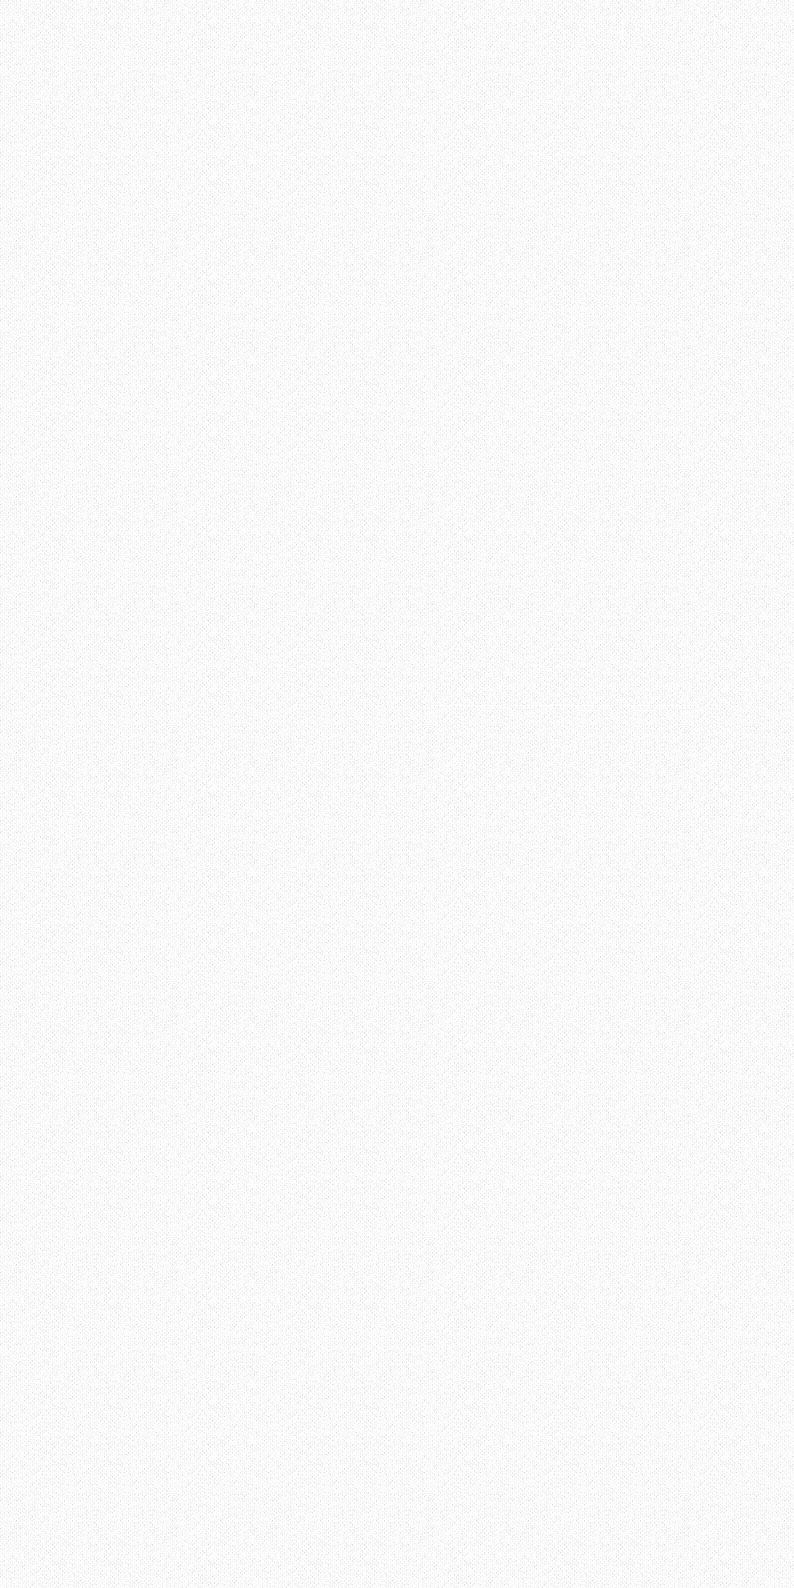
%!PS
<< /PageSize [794 1588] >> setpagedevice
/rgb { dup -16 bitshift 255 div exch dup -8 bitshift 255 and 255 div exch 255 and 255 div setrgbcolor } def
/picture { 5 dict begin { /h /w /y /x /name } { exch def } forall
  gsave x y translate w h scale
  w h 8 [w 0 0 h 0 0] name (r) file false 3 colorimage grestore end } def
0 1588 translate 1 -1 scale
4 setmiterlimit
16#FFFFFF rgb
0 0 794 1588 rectfill
(pic1.raw) 0 0 794 1588 picture
521 16 1 29 rectfill
622 16 1 29 rectfill
714 16 1 29 rectfill
431 705 71 1 rectfill
511 705 102 1 rectfill
622 705 71 1 rectfill
showpage
